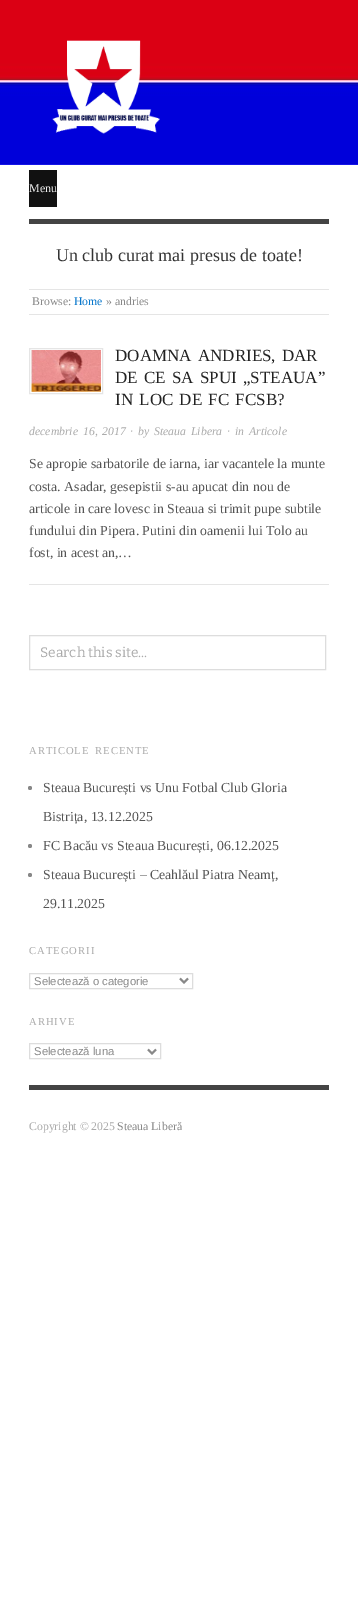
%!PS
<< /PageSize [358 1606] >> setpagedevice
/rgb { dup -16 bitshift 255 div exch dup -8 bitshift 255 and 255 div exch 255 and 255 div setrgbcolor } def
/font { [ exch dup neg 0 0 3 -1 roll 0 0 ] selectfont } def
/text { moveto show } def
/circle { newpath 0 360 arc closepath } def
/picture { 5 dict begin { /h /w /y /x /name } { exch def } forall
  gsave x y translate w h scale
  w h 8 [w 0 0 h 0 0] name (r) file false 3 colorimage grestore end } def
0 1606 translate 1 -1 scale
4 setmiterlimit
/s1 { /LiberationSerif-Regular 12 font 16#EEEEEE rgb } def
/s2 { /LiberationSerif-Regular 18 font 16#333333 rgb } def
/s3 { /LiberationSerif-Regular 11.75 font 16#888888 rgb } def
/s4 { /LiberationSerif-Regular 11.75 font 16#0877CC rgb } def
/s5 { /LiberationSerif-Italic 11.75 font 16#AAAAAA rgb } def
/s6 { /LiberationSerif-Regular 13.8 font 16#555555 rgb } def
/s7 { /Bitter-Regular 13.8 font 16#AAAAAA rgb } def
/s8 { /LiberationSans-Regular 11.25 font 16#888888 rgb } def
/s9 { /LiberationSerif-Regular 11.75 font 16#AAAAAA rgb } def
16#FFFFFF rgb
0 0 358 1606 rectfill
(pic1.raw) 0 0 358 165 picture
(pic2.raw) 52 40 108 94 picture
16#111111 rgb
29 170 28 37 rectfill
s1
(Menu) 29 192 text
16#444444 rgb
29 219 300 5 rectfill
s2
(Un club curat mai presus de toate!) 56 261 text
16#E5E5E5 rgb
29 289 300 1 rectfill
29 314 300 1 rectfill
s3
(Browse:) 32 305 text
s4
(Home) 74 305 text
s3
(» andries) 106 305 text
16#E5E5E5 rgb
29 584 300 1 rectfill
29.5 348.5 73 45 rectstroke
(pic3.raw) 31 350 70 42 picture
/LiberationSerif-Regular 17 font
16#222222 rgb
115 361 moveto 2 0 32 (DOAMNA ANDRIES, DAR) widthshow
115 383 moveto 2 0 32 (DE CE SA SPUI „STEAUA”) widthshow
115 405 moveto 2 0 32 (IN LOC DE FC FCSB?) widthshow
/LiberationSerif-Italic 11.75 font
16#AAAAAA rgb
29 435 moveto 2 0 32 (decembrie 16, 2017) widthshow
130 435 moveto 2 0 32 (· by) widthshow
154 435 moveto 2 0 32 (Steaua Libera) widthshow
227 435 moveto 2 0 32 (· in) widthshow
(Articole) 249 435 text
s6
(Se apropie sarbatorile de iarna, iar vacantele la munte) 29 468 text
(costa. Asadar, gesepistii s-au apucat din nou de) 29 491 text
(articole in care lovesc in Steaua si trimit pupe subtile) 29 513 text
(fundului din Pipera. Putini din oamenii lui Tolo au) 29 535 text
(fost, in acest an,…) 29 557 text
16#DDDDDD rgb
29.5 635.5 296 34 rectstroke
s7
(Search this site...) 40 657 text
/LiberationSerif-Regular 10.6 font
29 754 moveto 2 0 32 1 0 (ARTICOLE RECENTE) awidthshow
16#888888 rgb
30 788 2 circle fill
s6
(Steaua București vs Unu Fotbal Club Gloria) 43 792 text
(Bistrița, 13.12.2025) 43 821 text
16#888888 rgb
30 846 2 circle fill
s6
(FC Bacău vs Steaua București, 06.12.2025) 43 850 text
16#888888 rgb
30 875 2 circle fill
s6
(Steaua București – Ceahlăul Piatra Neamț,) 43 879 text
(29.11.2025) 43 908 text
/LiberationSerif-Regular 10.6 font
16#AAAAAA rgb
29 954 moveto 1 0 (CATEGORII) ashow
16#DDDDDD rgb
29.5 973.5 163 15 rectstroke
16#888888 rgb
2 setlinewidth
180 978.5 moveto 184 982.5 lineto 188 978.5 lineto stroke
s8
(Selectează o categorie) 34 985 text
/LiberationSerif-Regular 10.6 font
16#AAAAAA rgb
29 1025 moveto 1 0 (ARHIVE) ashow
16#DDDDDD rgb
1 setlinewidth
29.5 1043.5 131 15 rectstroke
16#888888 rgb
2 setlinewidth
148 1049.5 moveto 152 1053.5 lineto 156 1049.5 lineto stroke
s8
(Selectează luna) 34 1055 text
16#444444 rgb
29 1085 300 5 rectfill
s9
(Copyright © 2025) 29 1130 text
s3
(Steaua Liberă) 117 1130 text
showpage
